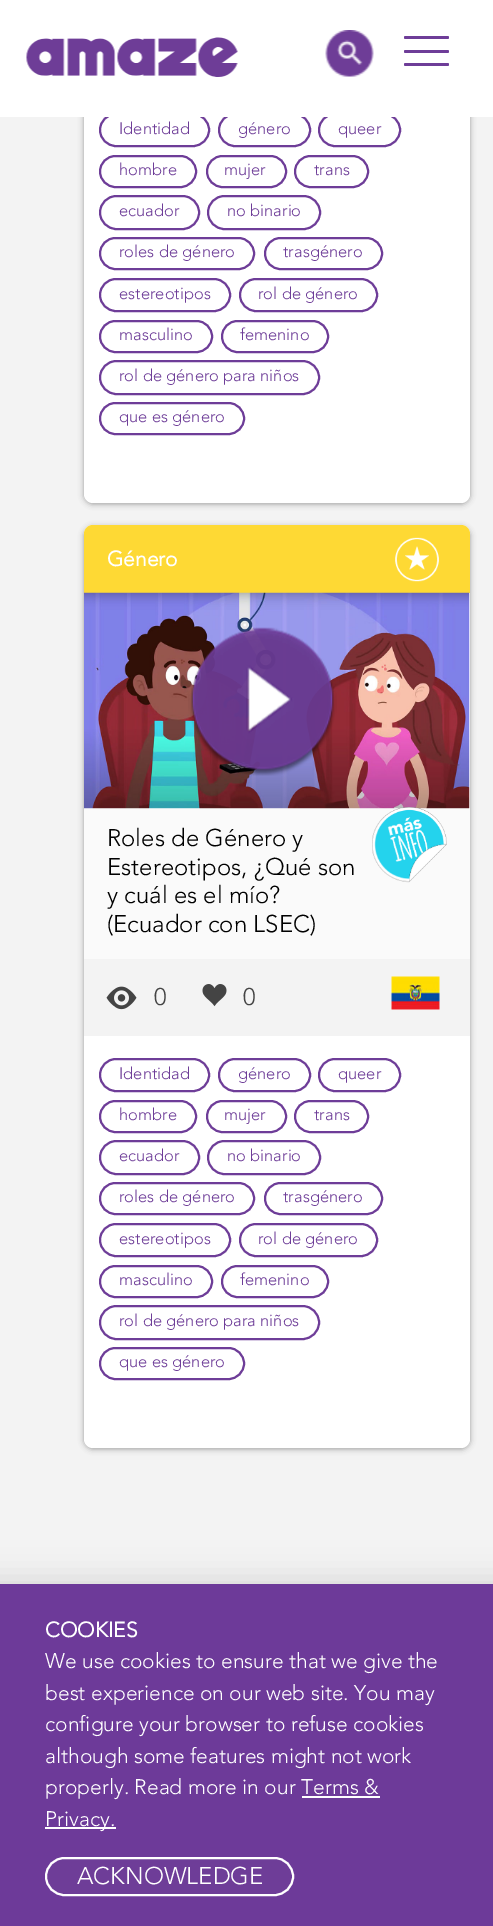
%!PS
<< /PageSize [493 1926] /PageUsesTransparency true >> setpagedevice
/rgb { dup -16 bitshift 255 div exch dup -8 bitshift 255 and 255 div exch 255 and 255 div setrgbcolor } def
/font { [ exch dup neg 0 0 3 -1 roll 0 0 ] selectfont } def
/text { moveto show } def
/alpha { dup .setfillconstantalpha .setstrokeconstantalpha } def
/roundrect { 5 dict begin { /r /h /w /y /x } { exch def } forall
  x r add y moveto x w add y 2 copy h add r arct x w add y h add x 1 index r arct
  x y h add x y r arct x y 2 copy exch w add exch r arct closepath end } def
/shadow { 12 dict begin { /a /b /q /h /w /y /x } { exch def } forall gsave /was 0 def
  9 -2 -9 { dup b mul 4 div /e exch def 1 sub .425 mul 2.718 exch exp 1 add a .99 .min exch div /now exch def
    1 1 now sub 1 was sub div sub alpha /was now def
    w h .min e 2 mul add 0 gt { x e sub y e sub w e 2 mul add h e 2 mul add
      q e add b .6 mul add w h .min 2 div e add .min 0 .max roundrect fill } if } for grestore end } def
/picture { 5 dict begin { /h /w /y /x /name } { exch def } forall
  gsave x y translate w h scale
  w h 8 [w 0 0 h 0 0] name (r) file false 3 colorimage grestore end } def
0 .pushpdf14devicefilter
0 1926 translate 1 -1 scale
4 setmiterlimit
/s1 { /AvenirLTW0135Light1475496-Light 16.5 font 16#6E3D98 rgb } def
/s2 { /AvenirLTW0135Light1475496-Bold 21 font 16#FFFFFF rgb } def
/s3 { /AvenirLTW0135Light1475496-Light 24 font 16#000000 rgb } def
/s4 { /AvenirLTW0135Light1475496-Light 24 font 16#444444 rgb } def
/s5 { /AvenirLTW0135Light1475496-Light 21 font 16#FFFFFF rgb } def
/s6 { /AvenirLTW0135Light1475496-Light 24 font 16#FFFFFF rgb } def
16#F3F3F3 rgb
0 0 493 1926 rectfill
16#979797 rgb
84 -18 386 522 9 3 1 shadow
16#FFFFFF rgb
84 -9 386 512 9 roundrect fill
16#6E3D98 rgb
2 setlinewidth
100 114 109 32 16 roundrect stroke
219 114 91 32 16 roundrect stroke
319 114 81 32 16 roundrect stroke
16#FFFFFF rgb
0 0 493 117 rectfill
(pic1.raw) 26 37 212 40 picture
(pic2.raw) 325 30 49 47 picture
16#6E3D98 rgb
404 36 45 3 1.5 roundrect fill
404 50 45 3 1.5 roundrect fill
404 63 45 3 1.5 roundrect fill
s1
(Identidad) 119 134 text
(género) 238 134 text
(queer) 338 134 text
100 156 96 31 15.5 roundrect stroke
(hombre) 119 175 text
207 156 79 31 15.5 roundrect stroke
(mujer) 224 175 text
295 156 73 31 15.5 roundrect stroke
(trans) 314 175 text
100 196 99 33 16.5 roundrect stroke
(ecuador) 119 216 text
208 196 112 33 16.5 roundrect stroke
(no binario) 227 216 text
100 238 154 31 15.5 roundrect stroke
(roles de género) 119 257 text
265 238 117 31 15.5 roundrect stroke
(trasgénero) 283 257 text
100 279 130 32 16 roundrect stroke
(estereotipos) 119 299 text
240 279 137 32 16 roundrect stroke
(rol de género) 258 299 text
100 321 112 31 15.5 roundrect stroke
(masculino) 119 340 text
222 321 106 31 15.5 roundrect stroke
(femenino) 240 340 text
100 361 219 33 16.5 roundrect stroke
(rol de género para niños) 119 381 text
100 403 144 31 15.5 roundrect stroke
(que es género) 119 422 text
16#979797 rgb
84 527 386 922 9 3 1 shadow
16#FFFFFF rgb
84 525 386 923 9 roundrect fill
16#FED934 rgb
93 525 moveto 461 525 lineto 466 525 470 529 470 534 curveto 470 593 lineto 84 593 lineto 84 534 lineto 84 529 88 525 93 525 curveto closepath fill
s2
(Género) 107 566 text
(pic3.raw) 395 537 44 45 picture
(pic4.raw) 84 592 386 217 picture
(pic5.raw) 188 627 149 149 picture
16#FAFAFA rgb
84 809 386 150 rectfill
s3
(Roles de Género y) 107 846 text
(Estereotipos, ¿Qué son) 107 875 text
(y cuál es el mío?) 107 903 text
(\(Ecuador con LSEC\)) 107 932 text
(pic6.raw) 372 807 75 76 picture
16#F3F3F3 rgb
84 959 386 77 rectfill
(pic7.raw) 106 986 31 24 picture
s4
(0) 154 1005 text
(pic8.raw) 202 984 25 23 picture
(0) 243 1005 text
(pic9.raw) 391 976 49 34 picture
16#6E3D98 rgb
100 1059 109 32 16 roundrect stroke
s1
(Identidad) 119 1079 text
219 1059 91 32 16 roundrect stroke
(género) 238 1079 text
319 1059 81 32 16 roundrect stroke
(queer) 338 1079 text
100 1101 96 31 15.5 roundrect stroke
(hombre) 119 1120 text
207 1101 79 31 15.5 roundrect stroke
(mujer) 224 1120 text
295 1101 73 31 15.5 roundrect stroke
(trans) 314 1120 text
100 1141 99 33 16.5 roundrect stroke
(ecuador) 119 1161 text
208 1141 112 33 16.5 roundrect stroke
(no binario) 227 1161 text
100 1183 154 31 15.5 roundrect stroke
(roles de género) 119 1202 text
265 1183 117 31 15.5 roundrect stroke
(trasgénero) 283 1202 text
100 1224 130 32 16 roundrect stroke
(estereotipos) 119 1244 text
240 1224 137 32 16 roundrect stroke
(rol de género) 258 1244 text
100 1266 112 31 15.5 roundrect stroke
(masculino) 119 1285 text
222 1266 106 31 15.5 roundrect stroke
(femenino) 240 1285 text
100 1306 219 33 16.5 roundrect stroke
(rol de género para niños) 119 1326 text
100 1348 144 31 15.5 roundrect stroke
(que es género) 119 1367 text
16#000000 rgb
-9 1578 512 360 0 13.5 0.1 shadow
16#6D3A99 rgb
0 1584 493 342 rectfill
s2
(COOKIES) 45 1637 text
s5
(We use cookies to ensure that we give the) 45 1668 text
(best experience on our web site. You may) 45 1700 text
(configure your browser to refuse cookies) 45 1731 text
(although some features might not work) 45 1763 text
(properly. Read more in our Terms &) 45 1794 text
45 1827 71 2 rectfill
(Privacy.) 45 1826 text
302 1796 78 2 rectfill
16#6E3D98 rgb
46 1858 247 37 18.5 roundrect gsave fill grestore
16#FFFFFF rgb
stroke
s6
(ACKNOWLEDGE) 77 1884 text
.poppdf14devicefilter showpage
